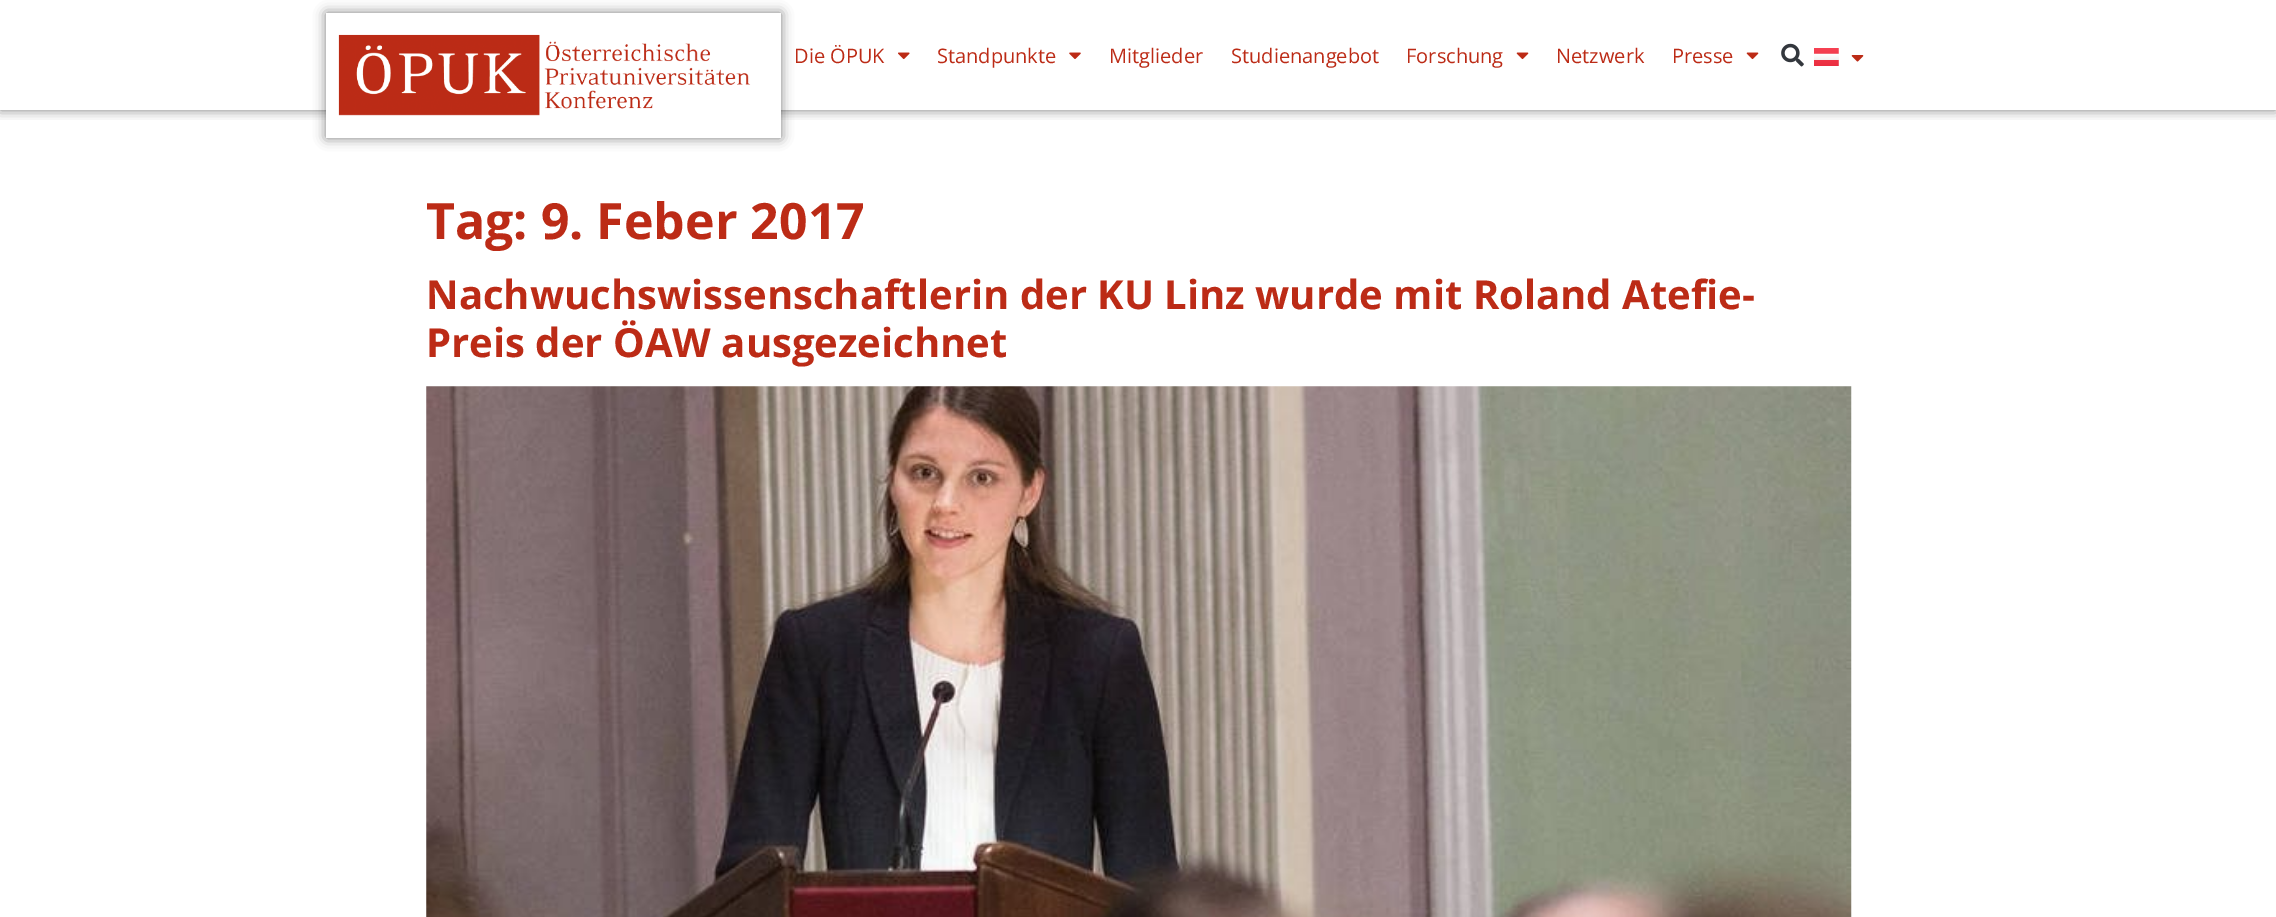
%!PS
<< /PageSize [2276 917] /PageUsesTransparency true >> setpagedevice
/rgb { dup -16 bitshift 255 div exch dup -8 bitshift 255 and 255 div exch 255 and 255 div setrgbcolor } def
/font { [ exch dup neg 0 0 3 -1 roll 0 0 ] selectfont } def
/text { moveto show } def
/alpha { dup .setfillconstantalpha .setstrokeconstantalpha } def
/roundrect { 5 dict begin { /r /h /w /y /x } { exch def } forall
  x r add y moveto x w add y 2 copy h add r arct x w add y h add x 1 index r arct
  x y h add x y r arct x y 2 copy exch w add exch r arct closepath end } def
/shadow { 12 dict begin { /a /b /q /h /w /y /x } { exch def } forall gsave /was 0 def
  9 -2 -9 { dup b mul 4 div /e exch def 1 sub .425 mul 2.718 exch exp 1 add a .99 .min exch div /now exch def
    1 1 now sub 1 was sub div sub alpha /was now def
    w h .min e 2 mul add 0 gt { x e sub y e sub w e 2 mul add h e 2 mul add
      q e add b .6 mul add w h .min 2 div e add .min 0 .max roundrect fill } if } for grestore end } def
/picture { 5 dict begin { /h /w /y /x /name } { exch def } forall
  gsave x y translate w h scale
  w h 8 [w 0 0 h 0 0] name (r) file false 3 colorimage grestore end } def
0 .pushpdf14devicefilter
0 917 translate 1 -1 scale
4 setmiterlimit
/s1 { /OpenSans-Regular 20 font 16#BC2B16 rgb } def
/s2 { /OpenSans-Bold 50 font 16#BC2B16 rgb } def
/s3 { /OpenSans-Bold 40 font 16#BC2B16 rgb } def
16#FFFFFF rgb
0 0 2276 917 rectfill
gsave
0 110 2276 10 rectclip
16#000000 rgb
0 0 2276 110 0 6 0.5 shadow
grestore
16#000000 rgb
326 13 455 125 0 6 0.5 shadow
16#FFFFFF rgb
326 13 455 125 rectfill
(pic1.raw) 338 34 413 82 picture
s1
(Die ÖPUK) 794 63 text
(pic2.raw) 898 52 12 8 picture
(Standpunkte) 937 63 text
(pic3.raw) 1069 52 12 7 picture
(Mitglieder) 1109 63 text
(Studienangebot) 1231 63 text
(Forschung) 1406 63 text
(pic4.raw) 1516 52 13 8 picture
(Netzwerk) 1556 63 text
(Presse) 1672 63 text
(pic4.raw) 1746 52 13 8 picture
(pic5.raw) 1781 43 23 24 picture
(pic6.raw) 1814 48 25 18 picture
(pic7.raw) 1851 55 13 7 picture
s2
(Tag: 9. Feber 2017) 426 239 text
s3
(Nachwuchswissenschaftlerin der KU Linz wurde mit Roland Atefie-) 426 309 text
(Preis der ÖAW ausgezeichnet) 426 357 text
(pic8.raw) 426 386 1426 531 picture
.poppdf14devicefilter showpage
